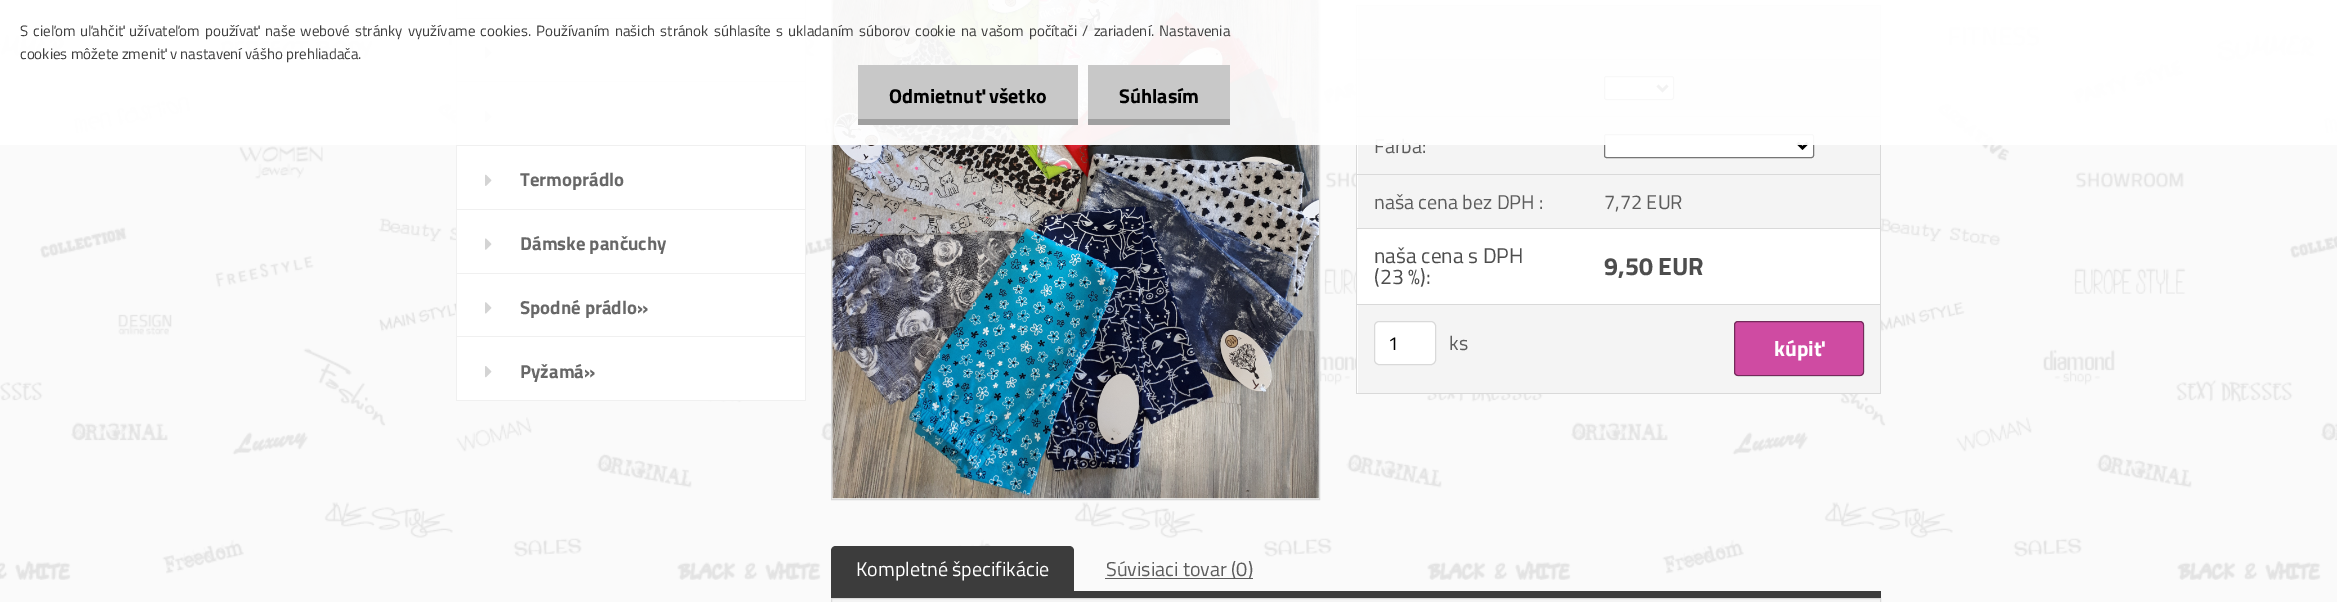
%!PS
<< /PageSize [2337 602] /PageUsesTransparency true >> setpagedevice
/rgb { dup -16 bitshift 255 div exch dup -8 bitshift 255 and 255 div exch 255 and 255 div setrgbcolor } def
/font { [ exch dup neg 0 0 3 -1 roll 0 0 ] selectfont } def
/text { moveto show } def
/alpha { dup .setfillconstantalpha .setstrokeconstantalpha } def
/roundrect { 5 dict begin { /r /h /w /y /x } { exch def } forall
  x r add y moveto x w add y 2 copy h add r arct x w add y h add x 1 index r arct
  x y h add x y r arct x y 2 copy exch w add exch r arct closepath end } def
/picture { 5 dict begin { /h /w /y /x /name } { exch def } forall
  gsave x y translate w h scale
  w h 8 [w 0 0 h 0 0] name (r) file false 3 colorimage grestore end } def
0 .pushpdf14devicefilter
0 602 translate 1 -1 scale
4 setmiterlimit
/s1 { /TitilliumWeb-Regular 20 font 16#5D5D5D rgb } def
/s2 { /TitilliumWeb-Regular 15 font 16#3F3F3F rgb } def
/s3 { /TitilliumWeb-Bold 20 font 16#000000 rgb } def
/s4 { /TitilliumWeb-Bold 18.75 font 16#686868 rgb } def
/s5 { /TitilliumWeb-Regular 21.25 font 16#4D4D4D rgb } def
/s6 { /TitilliumWeb-Bold 25 font 16#4D4D4D rgb } def
/s7 { /TitilliumWeb-Regular 18.75 font 16#000000 rgb } def
/s8 { /TitilliumWeb-Bold 21.25 font 16#FFFFFF rgb } def
/s9 { /TitilliumWeb-Regular 20 font 16#FFFFFF rgb } def
16#FAFAFA rgb
0 0 2337 602 rectfill
(pic1.raw) 0 27 2337 553 picture
16#FFFFFF rgb
457 0 348 18 rectfill
16#F0F0F0 rgb
805 0 1 401 rectfill
456 18 350 1 rectfill
456 0 1 19 rectfill
16#FFFFFF rgb
457 19 348 126 rectfill
16#F0F0F0 rgb
456 81 350 1 rectfill
456 19 1 64 rectfill
(pic2.raw) 485 47 7 12 picture
456 145 350 1 rectfill
456 83 1 63 rectfill
(pic3.raw) 485 111 7 12 picture
16#F4F4F4 rgb
832 0 1 499 rectfill
16#D9D9D9 rgb
831.5 -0.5 488 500 rectstroke
16#FFFFFF rgb
833 0 486 499 rectfill
(pic6.raw) 832 0 487 499 picture
1357 6 523 387 rectfill
16#D9D9D9 rgb
1356 5 525 1 rectfill
1880 5 1 389 rectfill
1356 393 525 1 rectfill
1356 5 1 389 rectfill
16#F4F4F4 rgb
1358 6 522 53 rectfill
1358 60 522 114 rectfill
16#D9D9D9 rgb
1356 59 525 1 rectfill
16#FFFFFF rgb
1604.5 76.5 69 23 2 roundrect gsave fill grestore
16#767676 rgb
stroke
16#000000 rgb
2.5 setlinewidth
1657.5 85.5 moveto 1662.5 90.5 lineto 1667.5 85.5 lineto stroke
16#D9D9D9 rgb
1356 116 525 1 rectfill
s1
(Farba:) 1374 153 text
16#FFFFFF rgb
1604.5 134.5 209 23 2 roundrect gsave fill grestore
16#767676 rgb
1 setlinewidth
stroke
16#000000 rgb
2.5 setlinewidth
1797.5 143 moveto 1802.5 148 lineto 1807.5 143 lineto stroke
0.95 alpha
16#FFFFFF rgb
0 0 2337 145 rectfill
/TitilliumWeb-Regular 15 font
1 alpha
16#3F3F3F rgb
20 36 moveto 1.9 0 32 (S cieľom uľahčiť užívateľom používať naše webové stránky využívame cookies. Používaním našich stránok súhlasíte s ukladaním súborov cookie na vašom počítači / zariadení. Nastavenia) widthshow
(cookies môžete zmeniť v nastavení vášho prehliadača.) 20 59 text
16#C8C8C8 rgb
858 65 220 54 rectfill
16#A0A0A0 rgb
858 119 220 6 rectfill
s3
(Odmietnuť všetko) 889 103 text
16#C8C8C8 rgb
1088 65 142 54 rectfill
16#A0A0A0 rgb
1088 119 142 6 rectfill
s3
(Súhlasím) 1119 103 text
16#FFFFFF rgb
457 146 348 63 rectfill
16#F0F0F0 rgb
456 209 350 1 rectfill
456 146 1 64 rectfill
(pic4.raw) 485 174 7 12 picture
s4
(Termoprádlo) 520 186 text
16#FFFFFF rgb
457 210 348 63 rectfill
16#F0F0F0 rgb
456 273 350 1 rectfill
456 210 1 64 rectfill
(pic5.raw) 485 238 7 12 picture
s4
(Dámske pančuchy) 520 250 text
16#FFFFFF rgb
457 274 348 126 rectfill
16#F0F0F0 rgb
456 336 350 1 rectfill
456 274 1 64 rectfill
(pic2.raw) 485 302 7 12 picture
s4
(Spodné prádlo») 520 314 text
16#F0F0F0 rgb
456 400 350 1 rectfill
456 338 1 63 rectfill
(pic3.raw) 485 366 7 12 picture
s4
(Pyžamá») 520 378 text
16#F4F4F4 rgb
1358 175 522 53 rectfill
16#D9D9D9 rgb
1356 174 525 1 rectfill
s1
(naša cena bez DPH :) 1374 209 text
(7,72 EUR) 1604 209 text
16#D9D9D9 rgb
1356 228 525 1 rectfill
s5
(naša cena s DPH) 1374 263 text
(\(23 %\):) 1374 284 text
s6
(9,50 EUR) 1604 275 text
16#F4F4F4 rgb
1358 305 522 88 rectfill
16#D9D9D9 rgb
1356 304 525 1 rectfill
16#FFFFFF rgb
1374.5 321.5 61 43 4.5 roundrect gsave fill grestore
16#D9D9D9 rgb
1 setlinewidth
stroke
s7
(1) 1388 350 text
s1
(ks) 1449 350 text
16#CF4BA2 rgb
1734 321 130 55 4 roundrect fill
0.44 alpha
16#000000 rgb
1734.5 321.5 129 54 3.5 roundrect stroke
1 alpha
s8
(kúpiť) 1774 356 text
16#3C3C3C rgb
831 591 1050 7 rectfill
836 546 moveto 1069 546 lineto 1072 546 1074 548 1074 551 curveto 1074 591 lineto 831 591 lineto 831 551 lineto 831 548 833 546 836 546 curveto closepath fill
s9
(Kompletné špecifikácie) 856 576 text
16#5D5D5D rgb
1105 578 148 1 rectfill
(Súvisiaci tovar \(0\)) 1106 576 text
16#F4F4F4 rgb
831.5 598.5 moveto 1880.5 598.5 lineto 1880.5 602.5 lineto 831.5 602.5 lineto closepath gsave fill grestore
16#D9D9D9 rgb
stroke
.poppdf14devicefilter showpage
